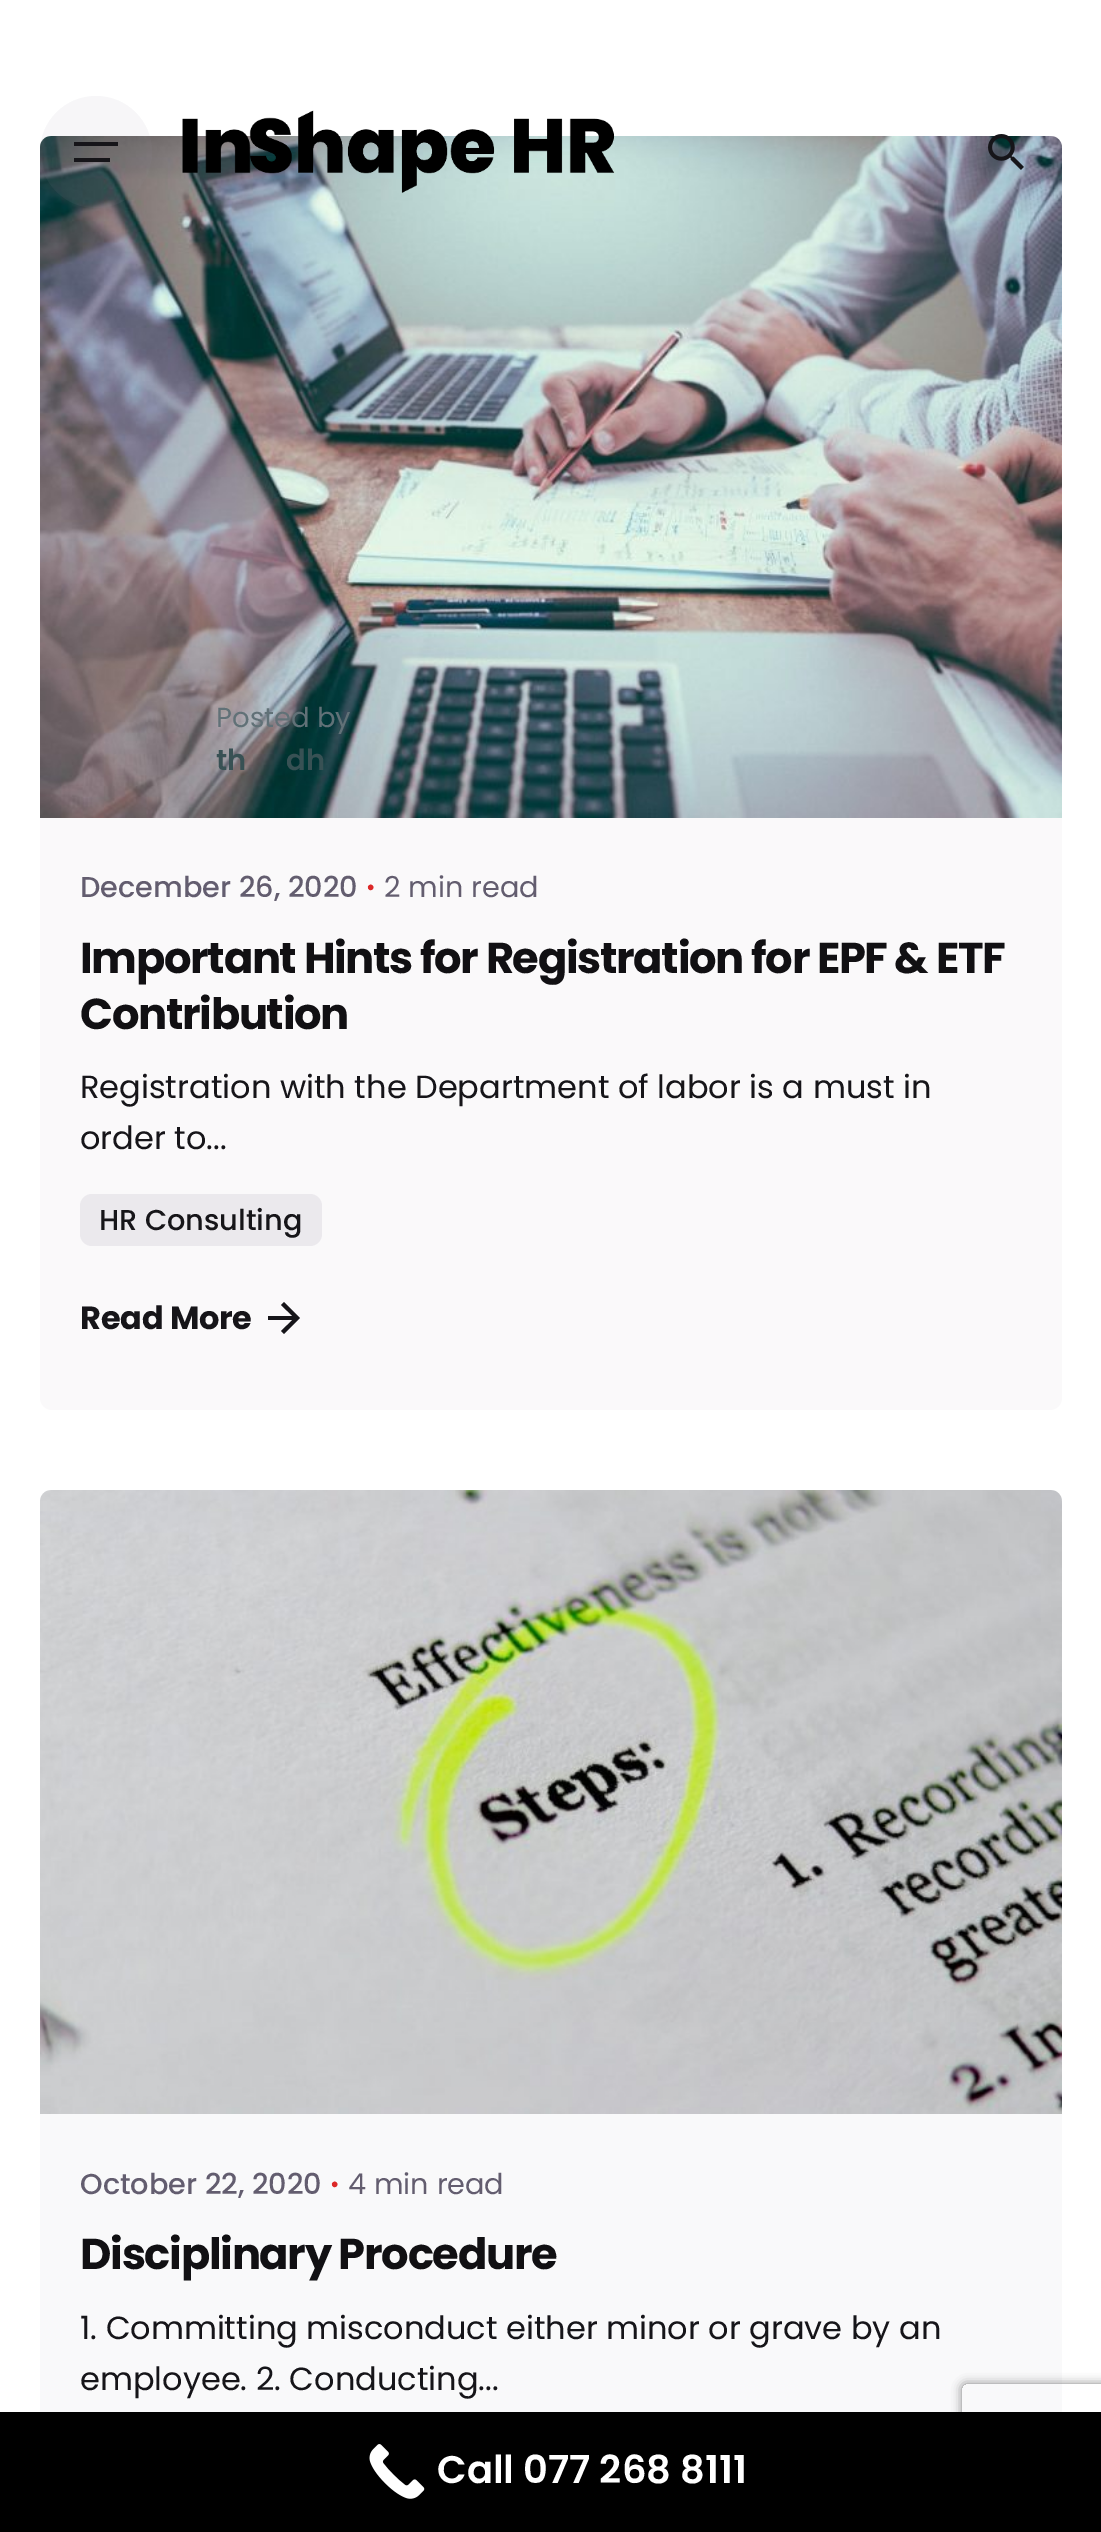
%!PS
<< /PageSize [1101 2532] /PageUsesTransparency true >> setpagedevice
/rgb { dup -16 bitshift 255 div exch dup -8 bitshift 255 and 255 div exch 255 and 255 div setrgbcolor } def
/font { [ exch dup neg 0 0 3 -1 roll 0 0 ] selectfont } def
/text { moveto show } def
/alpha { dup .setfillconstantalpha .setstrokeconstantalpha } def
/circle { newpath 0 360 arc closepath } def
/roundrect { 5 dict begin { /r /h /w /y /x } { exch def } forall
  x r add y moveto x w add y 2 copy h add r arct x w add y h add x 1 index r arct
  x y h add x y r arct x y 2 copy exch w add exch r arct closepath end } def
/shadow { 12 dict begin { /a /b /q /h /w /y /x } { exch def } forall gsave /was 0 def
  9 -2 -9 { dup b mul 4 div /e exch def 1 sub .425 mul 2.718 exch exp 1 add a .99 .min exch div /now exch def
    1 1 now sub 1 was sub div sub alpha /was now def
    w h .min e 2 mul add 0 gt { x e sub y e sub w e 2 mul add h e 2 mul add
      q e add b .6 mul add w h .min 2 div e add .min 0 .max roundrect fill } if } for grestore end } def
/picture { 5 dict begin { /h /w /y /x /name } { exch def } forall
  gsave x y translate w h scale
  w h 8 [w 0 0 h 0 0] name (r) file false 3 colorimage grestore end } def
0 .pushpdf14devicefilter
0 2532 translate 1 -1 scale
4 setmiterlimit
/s1 { /Poppins-Regular 27.5 font 16#617177 rgb } def
/s2 { /Poppins-SemiBold 29 font 16#385154 rgb } def
/s3 { /Poppins-Medium 28.75 font 16#635D6F rgb } def
/s4 { /Poppins-Regular 23 font 16#DC2828 rgb } def
/s5 { /Poppins-Regular 28.75 font 16#635D6F rgb } def
/s6 { /Poppins-Regular 32 font 16#161519 rgb } def
/s7 { /Poppins-Medium 28.75 font 16#161519 rgb } def
/s8 { /Poppins-SemiBold 38.5 font 16#FFFFFF rgb } def
16#FFFFFF rgb
0 0 1101 2532 rectfill
(pic3.raw) 40 136 1022 682 picture
0.08 alpha
16#9690A2 rgb
96 152 56 circle fill
1 alpha
16#161519 rgb
74 142 44 4 rectfill
74 158 36 4 rectfill
(pic1.raw) 182 110 433 83 picture
(pic2.raw) 988 134 36 36 picture
s1
(Posted by) 216 727 text
s2
(th) 216 770 text
(dh) 286 770 text
16#FAF9FA rgb
40 818 moveto 1062 818 lineto 1062 1398 lineto 1062 1404.5 1056.5 1410 1050 1410 curveto 52 1410 lineto 45.5 1410 40 1404.5 40 1398 curveto closepath fill
s3
(December 26, 2020) 80 897 text
s4
(•) 366 895 text
s5
(2 min read) 384 897 text
/Poppins-Bold 43.2 font
16#111013 rgb
80 973 moveto -1.3 0 (Important Hints for Registration for EPF & ETF) ashow
80 1029 moveto -1.3 0 (Contribution) ashow
s6
(Registration with the Department of labor is a must in) 80 1098 text
(order to...) 80 1149 text
16#EBE9ED rgb
80 1194 242 52 12 roundrect fill
s7
(HR Consulting) 99 1230 text
/Poppins-Bold 32 font
80 1329 moveto -0.25 0 (Read More) ashow
284 1302 moveto 281 1305 lineto 292.5 1316 lineto 268 1316 lineto 268 1320 lineto 292.5 1320 lineto 281 1331 lineto 284 1334 lineto 300 1318 lineto closepath fill
(pic4.raw) 40 1490 1022 624 picture
16#F9F9FA rgb
40 2114 1022 298 rectfill
s3
(October 22, 2020) 80 2194 text
s4
(•) 330 2192 text
s5
(4 min read) 348 2194 text
/Poppins-Bold 43.2 font
16#111013 rgb
80 2269 moveto -1.3 0 (Disciplinary Procedure) ashow
s6
(1. Committing misconduct either minor or grave by an) 80 2339 text
(employee. 2. Conducting...) 80 2390 text
gsave
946 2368 moveto 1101 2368 lineto 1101 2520 lineto 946 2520 lineto closepath 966 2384 moveto 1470 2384 lineto 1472 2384 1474 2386 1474 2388 curveto 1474 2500 lineto 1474 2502 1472 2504 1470 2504 curveto 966 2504 lineto 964 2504 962 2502 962 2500 curveto 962 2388 lineto 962 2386 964 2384 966 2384 curveto closepath eoclip newpath
16#808080 rgb
962 2384 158 120 4 5 1 shadow
grestore
16#000000 rgb
0 2412 1101 120 rectfill
(pic5.raw) 369 2444 56 55 picture
s8
(Call 077 268 8111) 437 2483 text
.poppdf14devicefilter showpage
